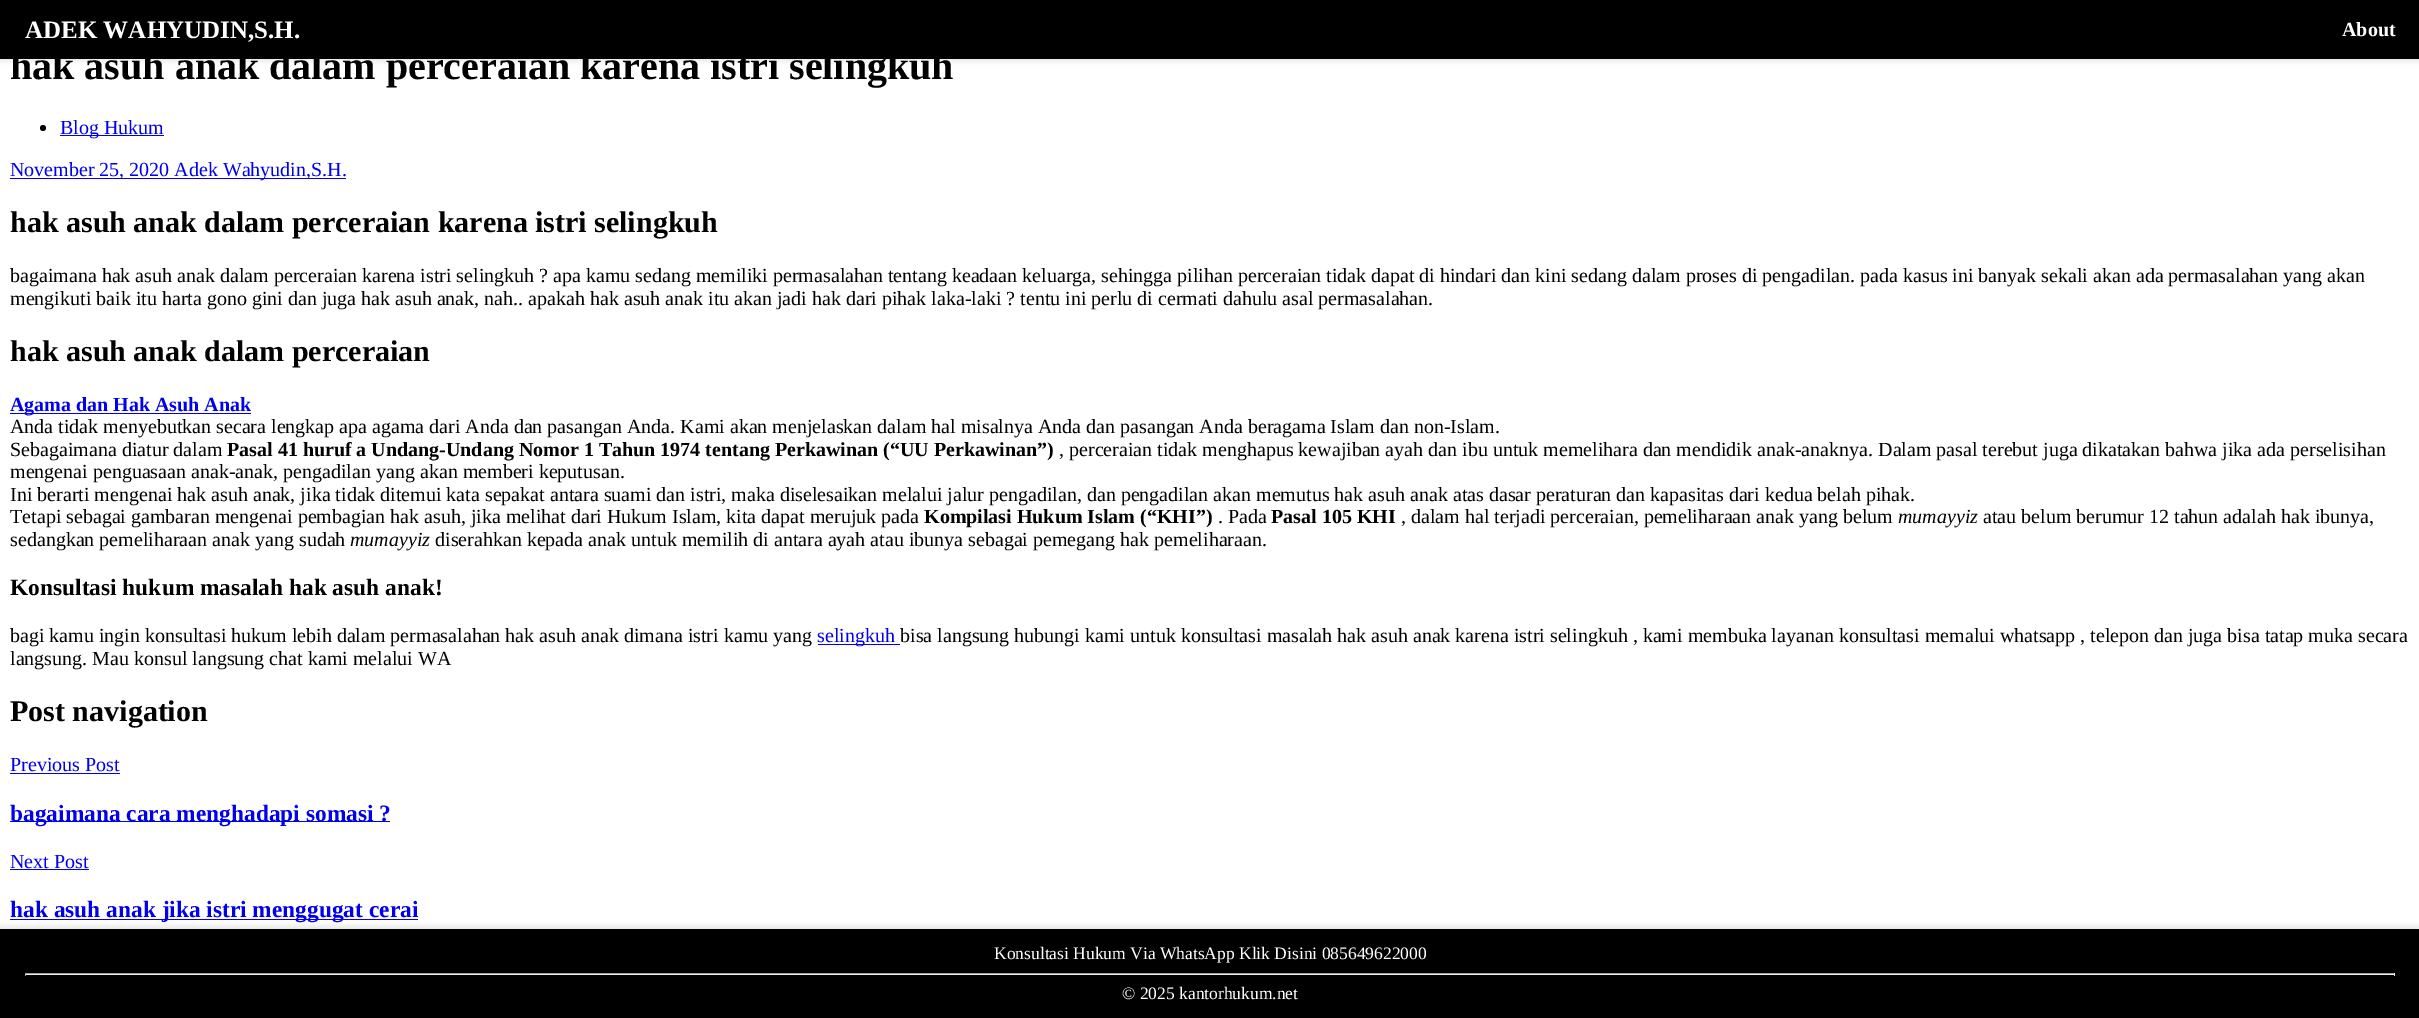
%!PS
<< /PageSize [2419 1018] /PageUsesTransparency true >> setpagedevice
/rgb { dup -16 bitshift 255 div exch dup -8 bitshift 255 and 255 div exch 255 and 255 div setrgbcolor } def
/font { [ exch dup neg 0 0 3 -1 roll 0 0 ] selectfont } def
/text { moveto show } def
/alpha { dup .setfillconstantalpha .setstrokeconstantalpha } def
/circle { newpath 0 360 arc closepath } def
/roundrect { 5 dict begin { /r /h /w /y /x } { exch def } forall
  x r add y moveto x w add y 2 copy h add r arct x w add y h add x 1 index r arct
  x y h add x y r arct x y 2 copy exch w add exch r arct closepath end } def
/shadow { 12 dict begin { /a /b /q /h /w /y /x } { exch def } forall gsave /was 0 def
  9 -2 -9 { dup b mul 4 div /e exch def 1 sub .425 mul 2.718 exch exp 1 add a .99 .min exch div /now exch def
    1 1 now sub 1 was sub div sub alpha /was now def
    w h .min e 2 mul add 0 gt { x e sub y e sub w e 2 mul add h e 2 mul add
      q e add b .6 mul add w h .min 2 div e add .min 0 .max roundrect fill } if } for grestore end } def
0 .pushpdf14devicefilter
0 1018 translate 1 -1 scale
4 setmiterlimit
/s1 { /LiberationSerif-Bold 25 font 16#FFFFFF rgb } def
/s2 { /LiberationSerif-Bold 20 font 16#FFFFFF rgb } def
/s3 { /LiberationSerif-Bold 40 font 16#000000 rgb } def
/s4 { /LiberationSerif-Regular 20 font 16#0000EE rgb } def
/s5 { /LiberationSerif-Bold 30 font 16#000000 rgb } def
/s6 { /LiberationSerif-Regular 20 font 16#000000 rgb } def
/s7 { /LiberationSerif-Bold 20 font 16#0000EE rgb } def
/s8 { /LiberationSerif-Bold 20 font 16#000000 rgb } def
/s9 { /LiberationSerif-Italic 20 font 16#000000 rgb } def
/s10 { /LiberationSerif-Bold 23.4 font 16#000000 rgb } def
/s11 { /LiberationSerif-Bold 23.4 font 16#0000EE rgb } def
/s12 { /LiberationSerif-Regular 17.5 font 16#FFFFFF rgb } def
16#FFFFFF rgb
0 0 2419 1018 rectfill
16#000000 rgb
0 3 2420 58 0 3 0.1 shadow
0 0 2419 59 rectfill
s1
(ADEK WAHYUDIN,S.H.) 25 38 text
s2
(About) 2342 36 text
s3
(hak asuh anak dalam perceraian karena istri selingkuh) 10 79 text
43 128 3 circle fill
16#0000EE rgb
60 135 104 1 rectfill
s4
(Blog Hukum) 60 134 text
10 178 336 1 rectfill
(November 25, 2020 Adek Wahyudin,S.H.) 10 176 text
s5
(hak asuh anak dalam perceraian karena istri selingkuh) 10 232 text
s6
(bagaimana hak asuh anak dalam perceraian karena istri selingkuh ? apa kamu sedang memiliki permasalahan tentang keadaan keluarga, sehingga pilihan perceraian tidak dapat di hindari dan kini sedang dalam proses di pengadilan. pada kasus ini banyak sekali akan ada permasalahan yang akan) 10 282 text
(mengikuti baik itu harta gono gini dan juga hak asuh anak, nah.. apakah hak asuh anak itu akan jadi hak dari pihak laka-laki ? tentu ini perlu di cermati dahulu asal permasalahan.) 10 305 text
s5
(hak asuh anak dalam perceraian) 10 361 text
16#0000EE rgb
10 413 241 1 rectfill
s7
(Agama dan Hak Asuh Anak) 10 411 text
s6
(Anda tidak menyebutkan secara lengkap apa agama dari Anda dan pasangan Anda. Kami akan menjelaskan dalam hal misalnya Anda dan pasangan Anda beragama Islam dan non-Islam.) 10 433 text
(Sebagaimana diatur dalam) 10 456 text
s8
(Pasal 41 huruf a Undang-Undang Nomor 1 Tahun 1974 tentang Perkawinan \(“UU Perkawinan”\)) 227 456 text
s6
(, perceraian tidak menghapus kewajiban ayah dan ibu untuk memelihara dan mendidik anak-anaknya. Dalam pasal terebut juga dikatakan bahwa jika ada perselisihan) 1059 456 text
(mengenai penguasaan anak-anak, pengadilan yang akan memberi keputusan.) 10 478 text
(Ini berarti mengenai hak asuh anak, jika tidak ditemui kata sepakat antara suami dan istri, maka diselesaikan melalui jalur pengadilan, dan pengadilan akan memutus hak asuh anak atas dasar peraturan dan kapasitas dari kedua belah pihak.) 10 501 text
(Tetapi sebagai gambaran mengenai pembagian hak asuh, jika melihat dari Hukum Islam, kita dapat merujuk pada) 10 523 text
s8
(Kompilasi Hukum Islam \(“KHI”\)) 924 523 text
s6
(. Pada) 1218 523 text
s8
(Pasal 105 KHI) 1271 523 text
s6
(, dalam hal terjadi perceraian, pemeliharaan anak yang belum) 1401 523 text
s9
(mumayyiz) 1898 523 text
s6
(atau belum berumur 12 tahun adalah hak ibunya,) 1983 523 text
(sedangkan pemeliharaan anak yang sudah) 10 546 text
s9
(mumayyiz) 350 546 text
s6
(diserahkan kepada anak untuk memilih di antara ayah atau ibunya sebagai pemegang hak pemeliharaan.) 435 546 text
s10
(Konsultasi hukum masalah hak asuh anak!) 10 595 text
s6
(bagi kamu ingin konsultasi hukum lebih dalam permasalahan hak asuh anak dimana istri kamu yang) 10 642 text
16#0000EE rgb
818 644 82 1 rectfill
(selingkuh) 817 642 text
s6
(bisa langsung hubungi kami untuk konsultasi masalah hak asuh anak karena istri selingkuh , kami membuka layanan konsultasi memalui whatsapp , telepon dan juga bisa tatap muka secara) 900 642 text
(langsung. Mau konsul langsung chat kami melalui WA) 10 665 text
s5
(Post navigation) 10 721 text
s4
(Previous Post) 10 771 text
10 773 110 1 rectfill
10 821 380 1 rectfill
s11
(bagaimana cara menghadapi somasi ?) 10 821 text
s4
(Next Post) 10 868 text
10 869 79 1 rectfill
10 919 408 1 rectfill
s11
(hak asuh anak jika istri menggugat cerai) 10 917 text
16#000000 rgb
0 926 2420 90 0 3 0.1 shadow
0 929 2419 89 rectfill
s12
(Konsultasi Hukum Via WhatsApp Klik Disini 085649622000) 994 959 text
16#9F9F9F rgb
25 973 2370 1 rectfill
16#EEEEEE rgb
2394 973 1 3 rectfill
25 974 2370 1 rectfill
16#9F9F9F rgb
25 973 1 3 rectfill
s12
(© 2025 kantorhukum.net) 1122 999 text
.poppdf14devicefilter showpage
